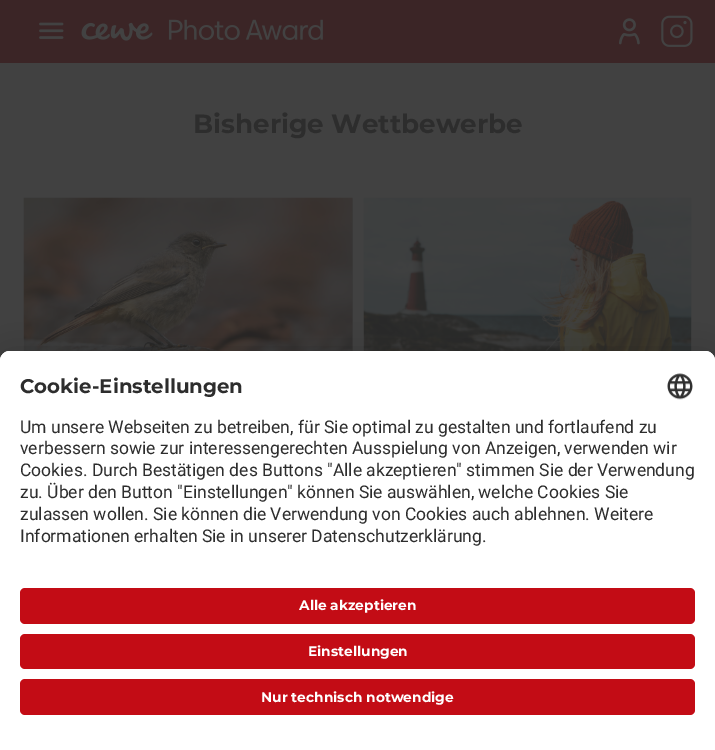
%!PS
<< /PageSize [715 750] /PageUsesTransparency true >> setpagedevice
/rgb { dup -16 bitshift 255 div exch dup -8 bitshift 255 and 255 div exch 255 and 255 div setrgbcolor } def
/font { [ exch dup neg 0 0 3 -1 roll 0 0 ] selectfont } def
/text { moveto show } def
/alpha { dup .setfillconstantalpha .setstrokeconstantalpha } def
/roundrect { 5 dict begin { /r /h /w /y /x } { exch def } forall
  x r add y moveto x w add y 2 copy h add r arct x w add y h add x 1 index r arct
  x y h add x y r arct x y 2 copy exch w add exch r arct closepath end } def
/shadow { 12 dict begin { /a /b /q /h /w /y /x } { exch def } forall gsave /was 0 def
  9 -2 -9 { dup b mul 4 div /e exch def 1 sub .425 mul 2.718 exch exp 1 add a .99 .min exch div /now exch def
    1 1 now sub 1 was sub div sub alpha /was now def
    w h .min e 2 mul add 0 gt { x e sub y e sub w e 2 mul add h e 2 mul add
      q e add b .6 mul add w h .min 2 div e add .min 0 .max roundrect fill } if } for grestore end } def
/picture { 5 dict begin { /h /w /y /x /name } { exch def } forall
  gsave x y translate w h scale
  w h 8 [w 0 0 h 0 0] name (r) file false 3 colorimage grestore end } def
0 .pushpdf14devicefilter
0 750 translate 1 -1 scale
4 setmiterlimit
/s1 { /Montserrat-Bold 26.25 font 16#2D2D2D rgb } def
/s2 { /Montserrat-Bold 19.75 font 16#2D2D2D rgb } def
/s3 { /Roboto-Regular 17.5 font 16#2D2D2D rgb } def
/s4 { /Montserrat-Bold 13.75 font 16#FFFFFF rgb } def
16#414141 rgb
0 0 715 750 rectfill
16#3B2526 rgb
0 0 715 63 rectfill
(pic1.raw) 39 22 25 17 picture
(pic2.raw) 81 19 242 22 picture
(pic3.raw) 619 18 21 27 picture
(pic4.raw) 661 15 32 32 picture
s1
(Bisherige Wettbewerbe) 193 133 text
(pic5.raw) 23 197 330 154 picture
(pic6.raw) 363 197 329 154 picture
16#000000 rgb
0 358 715 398 10 16 0.22 shadow
16#FFFFFF rgb
10 351 moveto 705 351 lineto 710.5 351 715 355.5 715 361 curveto 715 750 lineto 0 750 lineto 0 361 lineto 0 355.5 4.5 351 10 351 curveto closepath fill
10 351 moveto 705 351 lineto 710.5 351 715 355.5 715 361 curveto 715 573 lineto 0 573 lineto 0 361 lineto 0 355.5 4.5 351 10 351 curveto closepath fill
s2
(Cookie-Einstellungen) 20 393 text
(pic7.raw) 667 373 26 27 picture
s3
(Um unsere Webseiten zu betreiben, für Sie optimal zu gestalten und fortlaufend zu) 20 433 text
(verbessern sowie zur interessengerechten Ausspielung von Anzeigen, verwenden wir) 20 454 text
(Cookies. Durch Bestätigen des Buttons "Alle akzeptieren" stimmen Sie der Verwendung) 20 476 text
(zu. Über den Button "Einstellungen" können Sie auswählen, welche Cookies Sie) 20 498 text
(zulassen wollen. Sie können die Verwendung von Cookies auch ablehnen. Weitere) 20 520 text
(Informationen erhalten Sie in unserer Datenschutzerklärung.) 20 542 text
16#C30C15 rgb
20 588 675 36 5 roundrect fill
s4
(Alle akzeptieren) 299 610 text
16#C30C15 rgb
20 634 675 35 5 roundrect fill
s4
(Einstellungen) 308 656 text
16#C30C15 rgb
20 679 675 36 5 roundrect fill
s4
(Nur technisch notwendige) 261 702 text
.poppdf14devicefilter showpage
